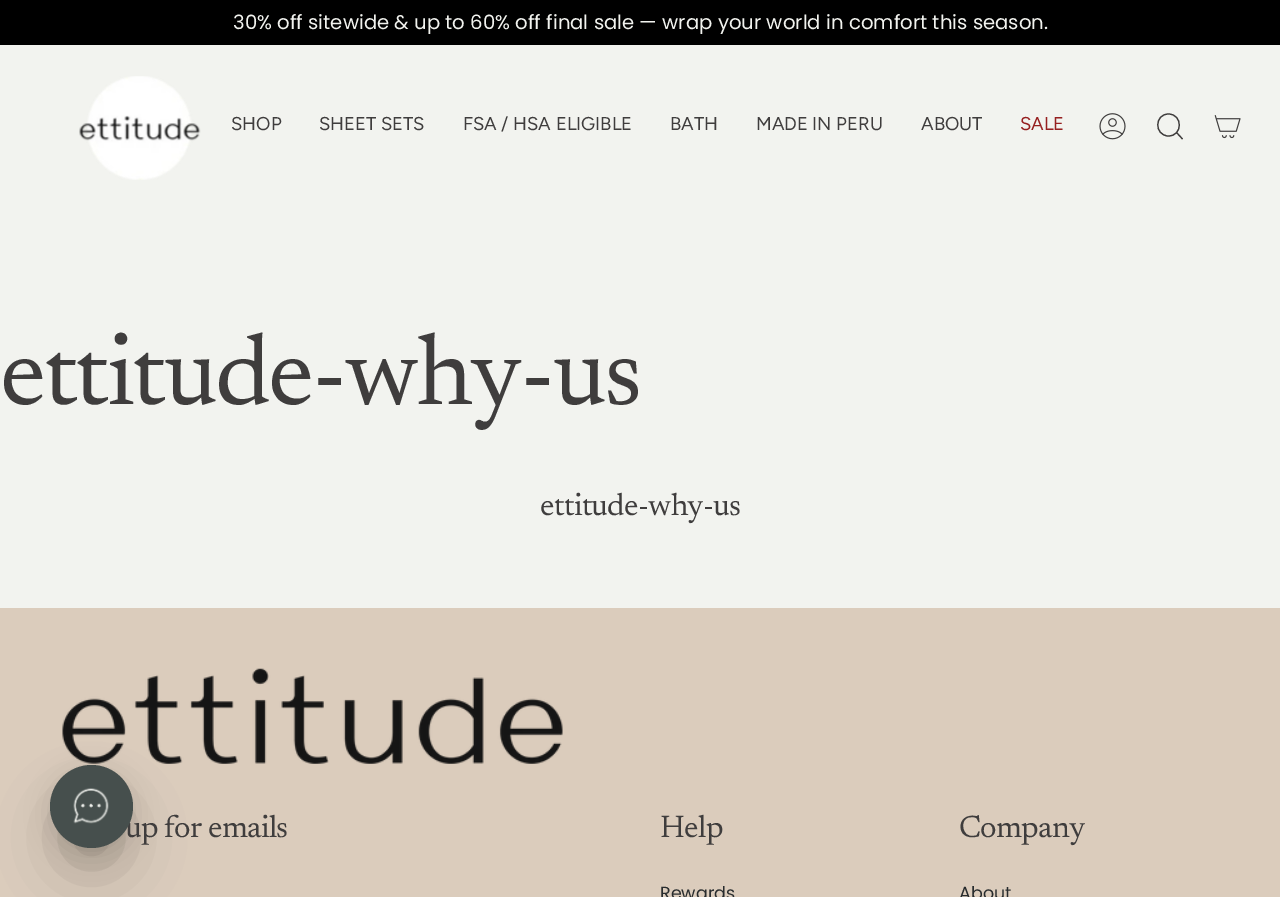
%!PS
<< /PageSize [1280 897] /PageUsesTransparency true >> setpagedevice
/rgb { dup -16 bitshift 255 div exch dup -8 bitshift 255 and 255 div exch 255 and 255 div setrgbcolor } def
/font { [ exch dup neg 0 0 3 -1 roll 0 0 ] selectfont } def
/text { moveto show } def
/alpha { dup .setfillconstantalpha .setstrokeconstantalpha } def
/circle { newpath 0 360 arc closepath } def
/roundrect { 5 dict begin { /r /h /w /y /x } { exch def } forall
  x r add y moveto x w add y 2 copy h add r arct x w add y h add x 1 index r arct
  x y h add x y r arct x y 2 copy exch w add exch r arct closepath end } def
/shadow { 12 dict begin { /a /b /q /h /w /y /x } { exch def } forall gsave /was 0 def
  9 -2 -9 { dup b mul 4 div /e exch def 1 sub .425 mul 2.718 exch exp 1 add a .99 .min exch div /now exch def
    1 1 now sub 1 was sub div sub alpha /was now def
    w h .min e 2 mul add 0 gt { x e sub y e sub w e 2 mul add h e 2 mul add
      q e add b .6 mul add w h .min 2 div e add .min 0 .max roundrect fill } if } for grestore end } def
/picture { 5 dict begin { /h /w /y /x /name } { exch def } forall
  gsave x y translate w h scale
  w h 8 [w 0 0 h 0 0] name (r) file false 3 colorimage grestore end } def
0 .pushpdf14devicefilter
0 897 translate 1 -1 scale
4 setmiterlimit
/s1 { /Poppins-Regular 19.7 font 16#F2F3EF rgb } def
/s2 { /Figtree-Regular 18.5 font 16#3F3D3D rgb } def
/s3 { /Figtree-Regular 18.5 font 16#962020 rgb } def
/s4 { /Poppins-Regular 17.5 font 16#282C2E rgb } def
16#F2F3EF rgb
0 0 1280 897 rectfill
16#000000 rgb
0 0 1280 45 rectfill
s1
(30% off sitewide & up to 60% off final sale — wrap your world in comfort this season.) 233 29 text
(pic1.raw) 79 76 122 104 picture
s2
(SHOP) 231 130 text
(SHEET SETS) 319 130 text
(FSA / HSA ELIGIBLE) 463 130 text
(BATH) 670 130 text
(MADE IN PERU) 756 130 text
(ABOUT) 921 130 text
s3
(SALE) 1020 130 text
(pic2.raw) 1099 113 27 27 picture
16#3F3D3D rgb
1.2 setlinewidth
1168.5 114 moveto 1183 114 1183 136.5 1168 136 curveto 1154 135 1154.5 114 1168.5 114 curveto closepath 1176.5 132.5 moveto 1182.5 139 lineto stroke
(pic3.raw) 1214 115 27 24 picture
/Newsreader-Regular 100 font
0 404 moveto -2.5 0 (ettitude-why-us) ashow
/Newsreader-Regular 31.25 font
540 515 moveto -0.75 0 (ettitude-why-us) ashow
16#DBCCBC rgb
0 608 1280 289 rectfill
(pic5.raw) 62 668 501 96 picture
16#000000 rgb
65 811 53 53 26.5 31 0.25 shadow
50 773 83 82 41 12 0.12 shadow
16#3F3D3D rgb
125 837 moveto -0.75 0 (up for emails) ashow
16#464F4D rgb
91.5 806.5 41.5 circle fill
(pic4.raw) 73 788 36 36 picture
16#3F3D3D rgb
660 837 moveto -0.75 0 (Help) ashow
s4
(Rewards) 660 899 text
/Newsreader-Regular 31.25 font
16#3F3D3D rgb
959 837 moveto -0.75 0 (Company) ashow
s4
(About) 959 899 text
.poppdf14devicefilter showpage
